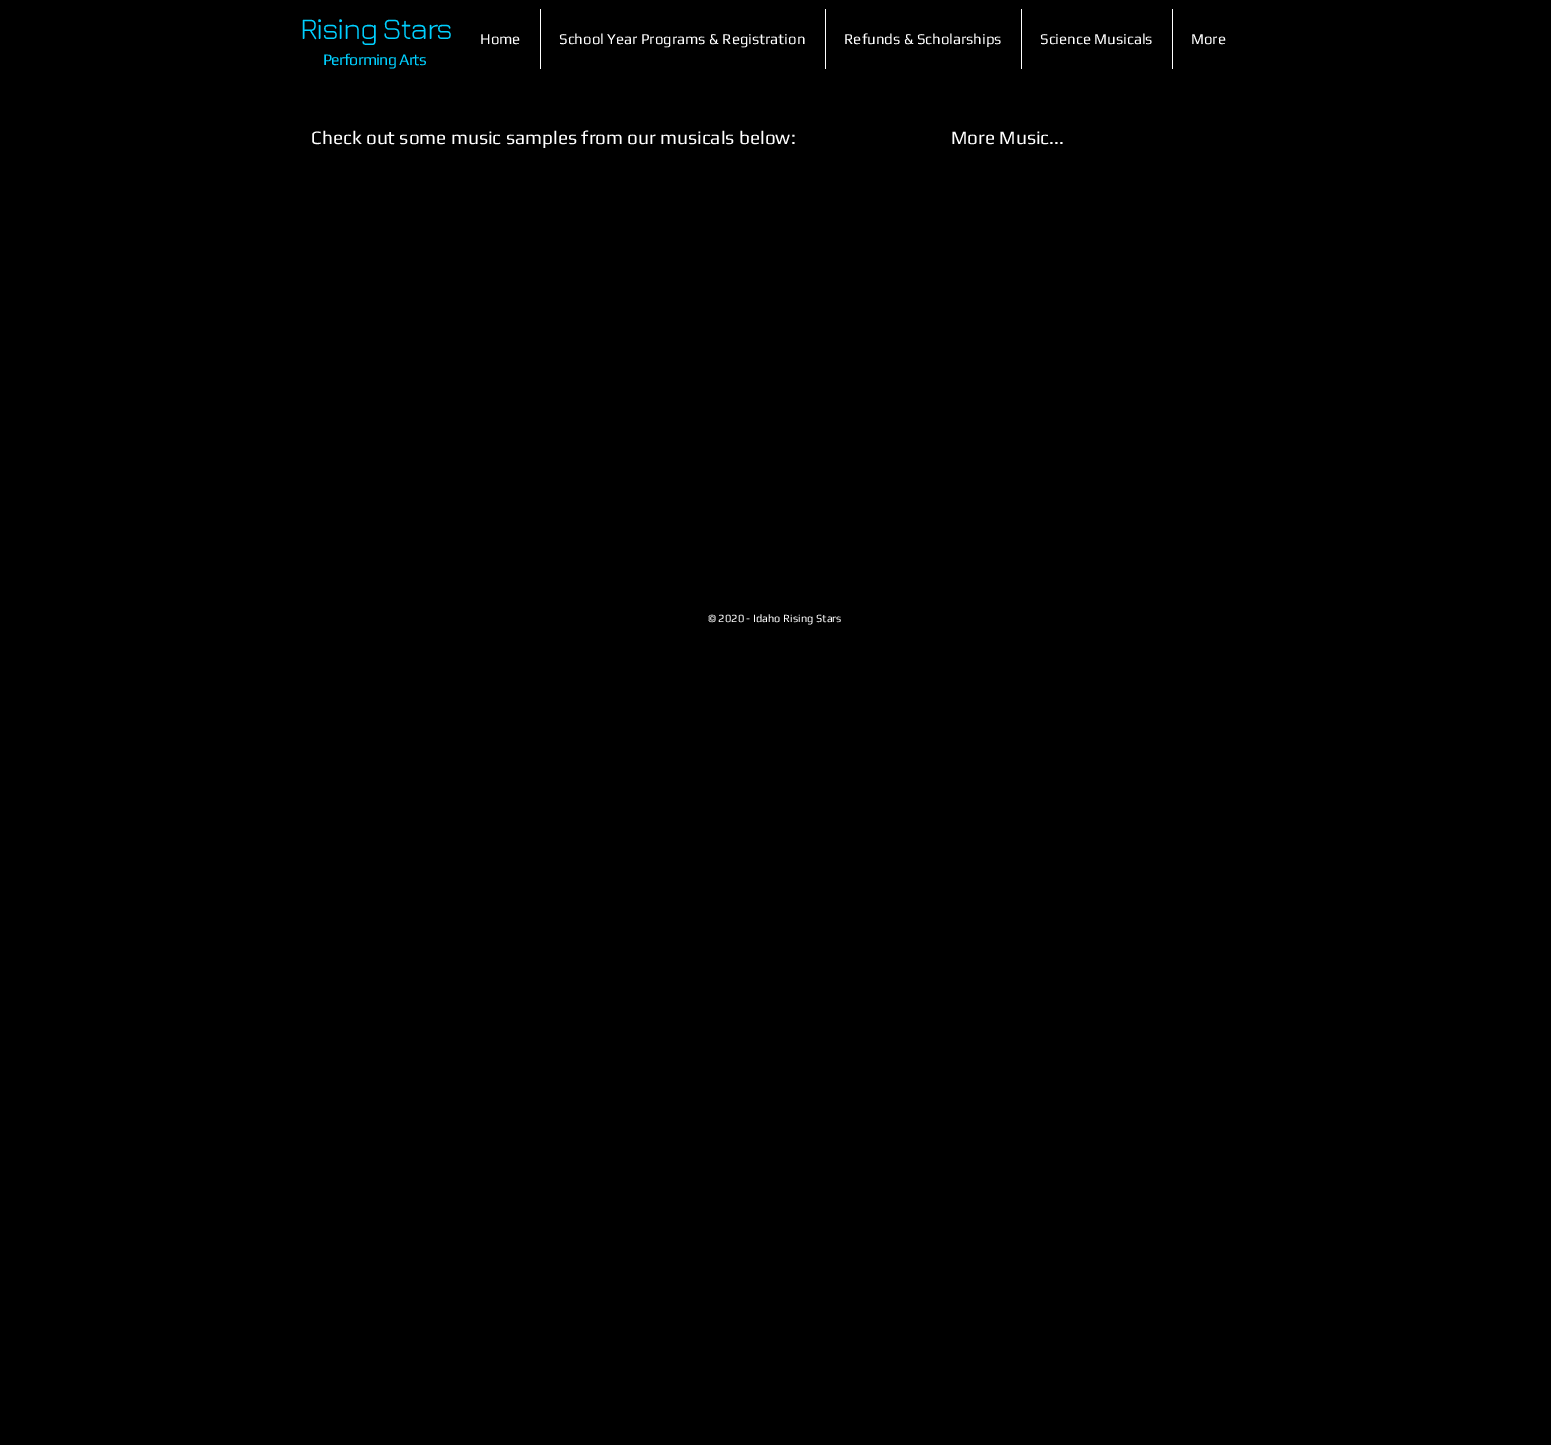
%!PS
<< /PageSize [1551 1445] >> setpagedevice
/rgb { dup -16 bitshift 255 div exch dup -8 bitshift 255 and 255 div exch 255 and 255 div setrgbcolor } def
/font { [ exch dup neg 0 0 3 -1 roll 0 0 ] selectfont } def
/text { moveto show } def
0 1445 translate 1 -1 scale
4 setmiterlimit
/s1 { /Play-Regular 15 font 16#FFFFFF rgb } def
/s2 { /Play-Regular 19 font 16#FFFFFF rgb } def
/s3 { /Play-Regular 11 font 16#FFFFFF rgb } def
16#000000 rgb
0 0 1551 1445 rectfill
/Jura-Regular 30 font
16#00D0FF rgb
300 39 moveto -1.5 0 (Rising Stars) ashow
/Play-Regular 16 font
323 65 moveto -0.75 0 (Performing Arts) ashow
s1
(Home) 480 44 text
540 9 1 60 rectfill
(School Year Programs & Registration) 559 44 text
825 9 1 60 rectfill
(Refunds & Scholarships) 844 44 text
1021 9 1 60 rectfill
(Science Musicals) 1040 44 text
1172 9 1 60 rectfill
(More) 1191 44 text
s2
(Check out some music samples from our musicals below:) 311 144 text
(More Music...) 951 144 text
s3
(© 2020 - Idaho Rising Stars) 708 622 text
showpage
